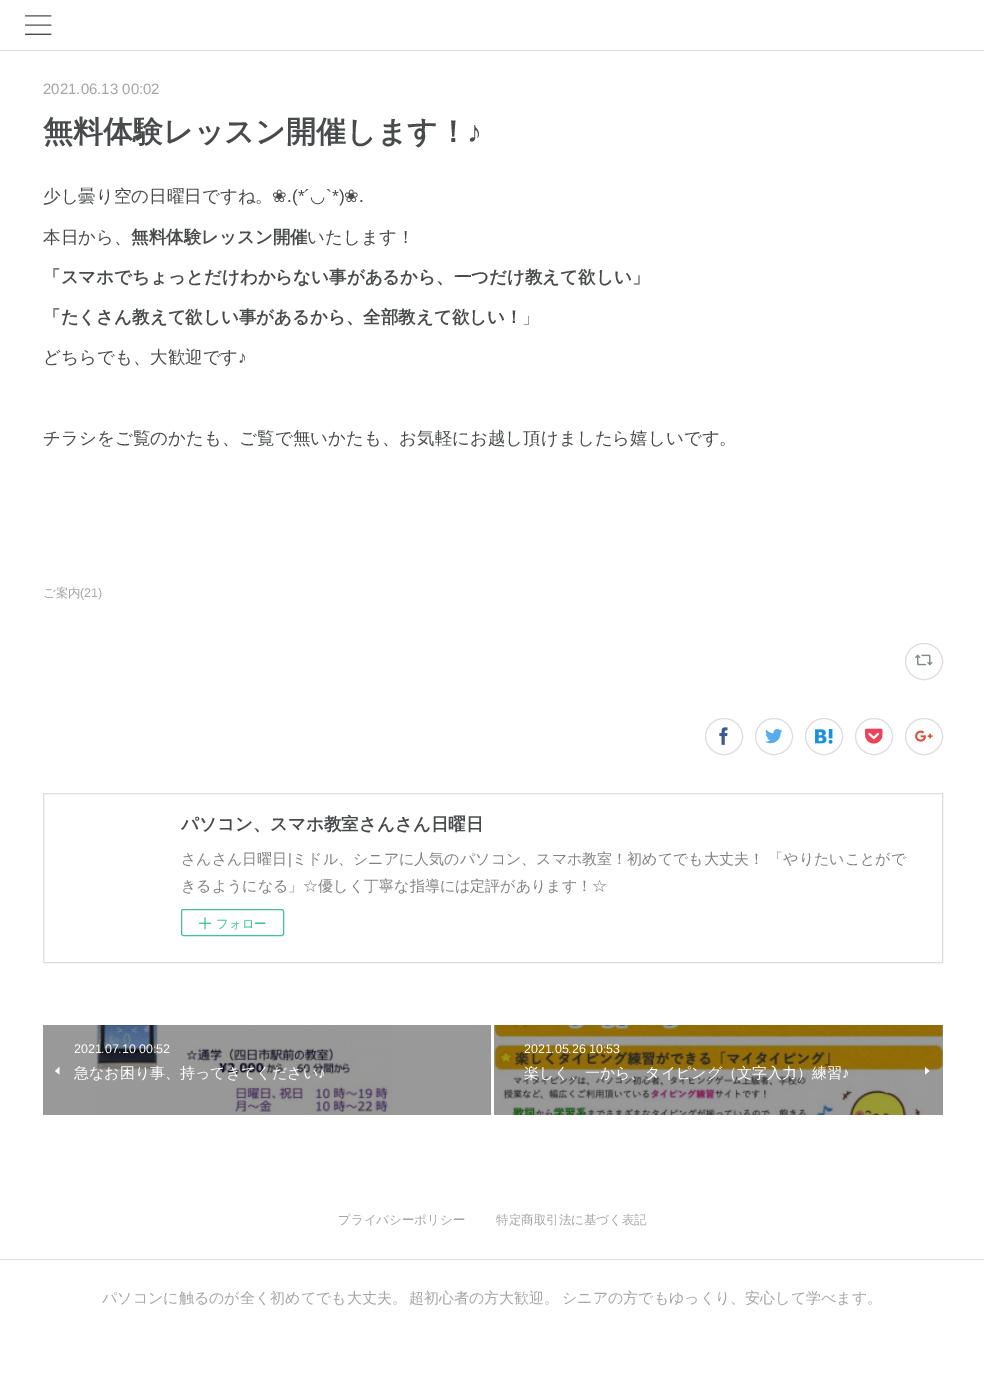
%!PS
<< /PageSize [984 1373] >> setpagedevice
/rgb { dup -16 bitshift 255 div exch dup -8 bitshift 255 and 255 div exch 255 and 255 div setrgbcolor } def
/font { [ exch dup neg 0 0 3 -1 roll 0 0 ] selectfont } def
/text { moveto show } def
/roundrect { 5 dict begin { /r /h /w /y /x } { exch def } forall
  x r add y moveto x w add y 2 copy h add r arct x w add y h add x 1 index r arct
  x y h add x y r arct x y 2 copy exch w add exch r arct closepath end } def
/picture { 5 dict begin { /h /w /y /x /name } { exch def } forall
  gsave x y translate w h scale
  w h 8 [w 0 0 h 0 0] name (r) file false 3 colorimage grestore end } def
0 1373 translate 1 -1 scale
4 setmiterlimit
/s1 { /LiberationSans-Regular 15 font 16#A4A5A6 rgb } def
/s2 { /WenQuanYiZenHei-Bold 30 font 16#484B4C rgb } def
/s3 { /LiberationSans-Bold 30 font 16#484B4C rgb } def
/s4 { /WenQuanYiZenHei-Medium 17.5 font 16#484B4C rgb } def
/s5 { /DejaVuSans-Regular 17.5 font 16#484B4C rgb } def
/s6 { /LiberationSans-Regular 17.5 font 16#484B4C rgb } def
/s7 { /WenQuanYiZenHei-Bold 17.5 font 16#484B4C rgb } def
/s8 { /WenQuanYiZenHei-Medium 12.5 font 16#A4A5A6 rgb } def
/s9 { /LiberationSans-Regular 12.5 font 16#A4A5A6 rgb } def
/s10 { /WenQuanYiZenHei-Medium 15 font 16#7F8182 rgb } def
/s11 { /LiberationSans-Regular 15 font 16#7F8182 rgb } def
/s12 { /WenQuanYiZenHei-Medium 12.5 font 16#3DC49D rgb } def
/s13 { /WenQuanYiZenHei-Medium 15 font 16#FFFFFF rgb } def
/s14 { /LiberationSans-Regular 15 font 16#FFFFFF rgb } def
16#FFFFFF rgb
0 0 984 1373 rectfill
16#999999 rgb
942 1025 1 90 rectfill
43 1025 448 90 rectfill
16#DDDDDD rgb
0 50 984 1 rectfill
(pic1.raw) 25 15 27 20 picture
s1
(2021.06.13 00:02) 43 94 text
s2
(無料体験レッスン開催します！) 43 142 text
s3
(♪) 467 142 text
s4
(少し曇り空の日曜日ですね。) 43 202 text
s5
(❀) 272 202 text
s6
(.\(*´) 287 202 text
s5
(◡) 310 202 text
s6
(`*\)) 326 202 text
s5
(❀) 344 202 text
s6
(.) 359 202 text
s4
(本日から、) 43 243 text
s7
(無料体験レッスン開催) 131 243 text
s4
(いたします！) 307 243 text
s7
(「スマホでちょっとだけわからない事があるから、一つだけ教えて欲しい」) 43 283 text
(「たくさん教えて欲しい事があるから、全部教えて欲しい！) 43 323 text
s4
(」) 522 323 text
(どちらでも、大歓迎です) 43 363 text
s6
(♪) 238 363 text
s4
(チラシをご覧のかたも、ご覧で無いかたも、お気軽にお越し頂けましたら嬉しいです。) 43 444 text
s8
(ご案内) 43 597 text
s9
(\(21\)) 80 597 text
16#DDDDDD rgb
905.5 643.5 37 36 18 roundrect stroke
(pic2.raw) 915 654 18 12 picture
705.5 718.5 37 36 18 roundrect stroke
(pic3.raw) 719 727 9 18 picture
755.5 718.5 37 36 18 roundrect stroke
(pic4.raw) 765 729 18 15 picture
805.5 718.5 37 36 18 roundrect stroke
(pic5.raw) 815 729 18 15 picture
855.5 718.5 37 36 18 roundrect stroke
(pic6.raw) 865 728 18 16 picture
905.5 718.5 37 36 18 roundrect stroke
(pic7.raw) 915 730 18 12 picture
43.5 793.5 899 169 rectstroke
s7
(パソコン、スマホ教室さんさん日曜日) 181 830 text
s10
(さんさん日曜日) 181 864 text
s11
(|) 288 864 text
s10
(ミドル、シニアに人気のパソコン、スマホ教室！初めてでも大丈夫！ 「やりたいことがで) 292 864 text
(きるようになる」☆優しく丁寧な指導には定評があります！☆) 181 891 text
16#3DC49D rgb
181.5 909.5 102 26 2 roundrect stroke
(pic8.raw) 198 917 14 13 picture
s12
(フォロー) 216 928 text
(pic9.raw) 96 1025 297 90 picture
/LiberationSans-Regular 12.5 font
16#FFFFFF rgb
74 1053 moveto -0.1 0 (2021.07.10 00:52) ashow
59.5 1074.5 moveto 59.5 1067 lineto 55 1071 lineto closepath fill
s13
(急なお困り事、持ってきてください) 74 1078 text
s14
(♪) 318 1078 text
(pic10.raw) 493 1025 450 90 picture
/LiberationSans-Regular 12.5 font
524 1053 moveto -0.1 0 (2021.05.26 10:53) ashow
s13
(楽しく、一から、タイピング（文字入力）練習) 524 1078 text
s14
(♪) 842 1078 text
925 1067 moveto 925 1074.5 lineto 929.5 1071 lineto closepath fill
s8
(プライバシーポリシー) 338 1224 text
(特定商取引法に基づく表記) 496 1224 text
16#DDDDDD rgb
0 1259 984 1 rectfill
/WenQuanYiZenHei-Medium 15 font
16#A4A5A6 rgb
102 1303 moveto -2 0 32 (パソコンに触るのが全く初めてでも大丈夫。 超初心者の方大歓迎。 シニアの方でもゆっくり、安心して学べます。) widthshow
showpage
